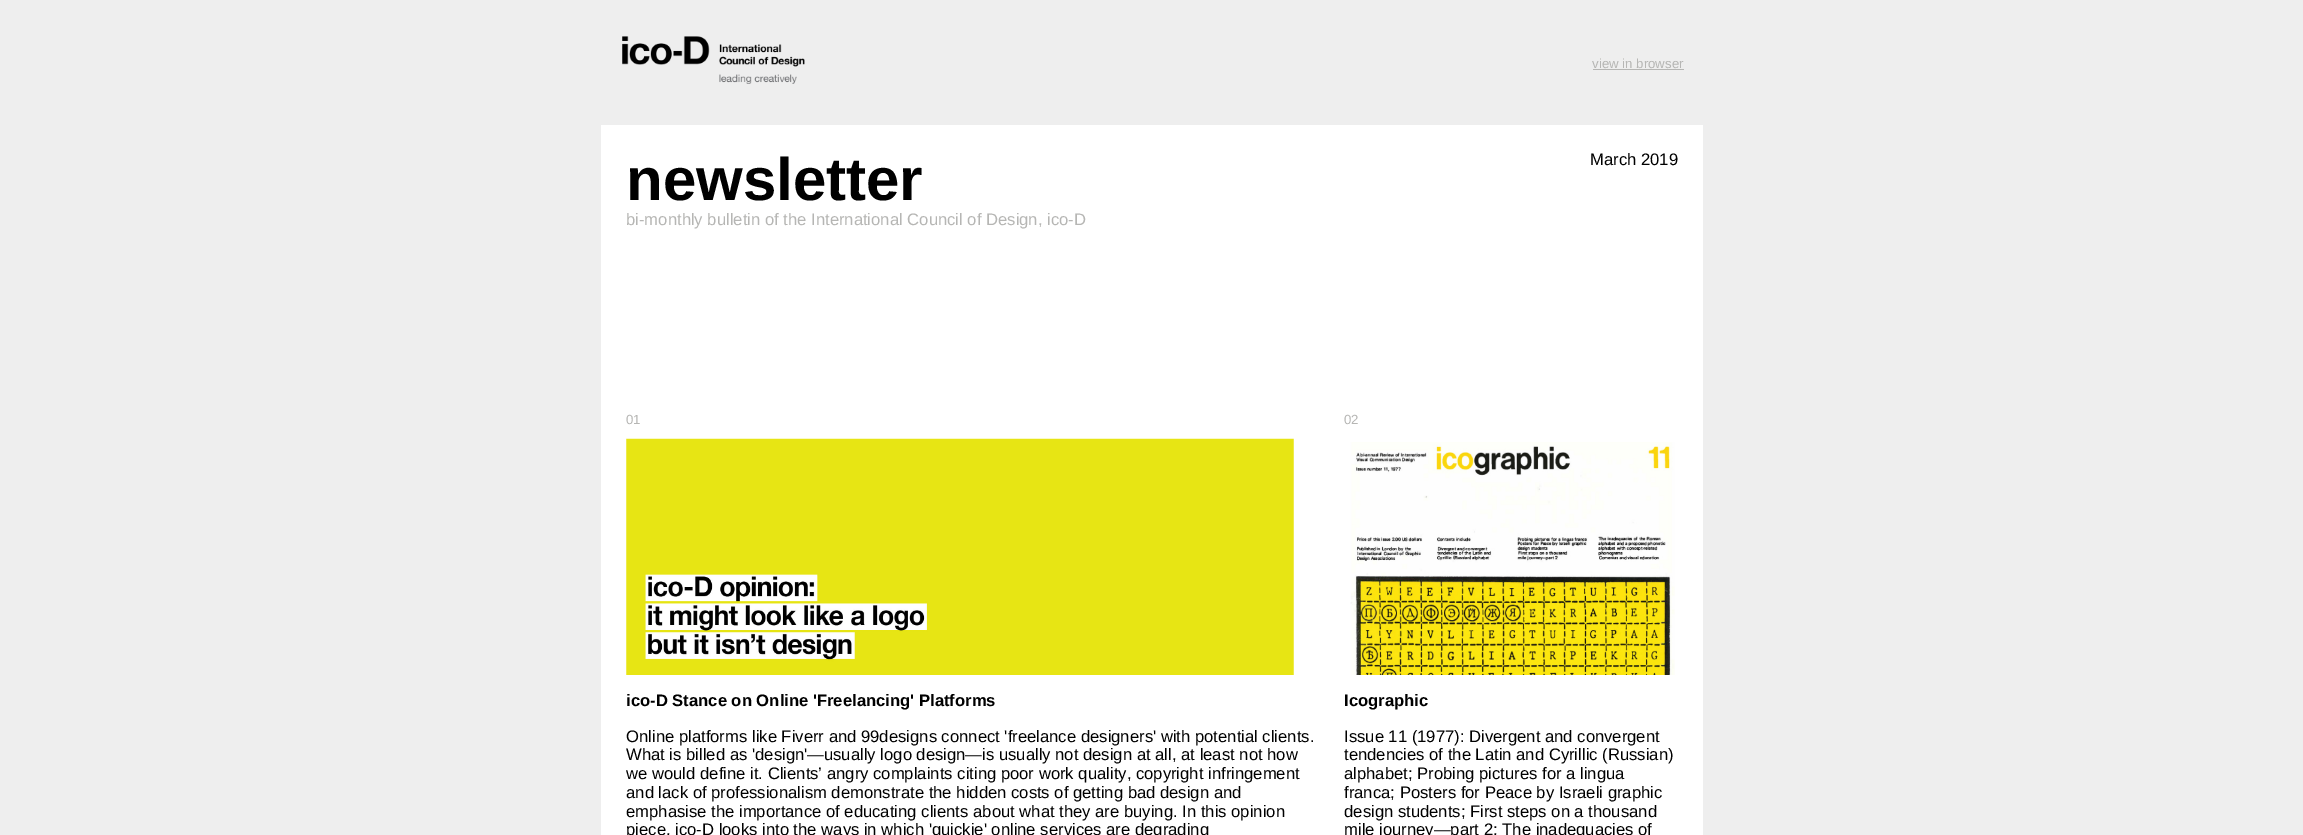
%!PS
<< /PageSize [2303 835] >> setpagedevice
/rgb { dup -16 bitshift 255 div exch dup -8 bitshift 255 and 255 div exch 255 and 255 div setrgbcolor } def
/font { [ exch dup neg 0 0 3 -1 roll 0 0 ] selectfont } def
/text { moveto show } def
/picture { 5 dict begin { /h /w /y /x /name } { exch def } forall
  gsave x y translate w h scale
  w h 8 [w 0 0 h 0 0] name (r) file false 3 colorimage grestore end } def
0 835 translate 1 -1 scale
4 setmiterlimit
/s1 { /LiberationSans-Regular 13.25 font 16#B6B6B4 rgb } def
/s2 { /LiberationSans-Bold 60 font 16#000000 rgb } def
/s3 { /LiberationSans-Regular 16.65 font 16#B6B6B4 rgb } def
/s4 { /LiberationSans-Regular 16.65 font 16#000000 rgb } def
/s5 { /LiberationSans-Bold 16.65 font 16#000000 rgb } def
16#EEEEEE rgb
0 0 2303 835 rectfill
(pic1.raw) 622 36 183 48 picture
s1
(view in browser) 1592 68 text
1593 69 91 1 rectfill
16#FFFFFF rgb
601 125 1102 710 rectfill
s2
(newsletter) 626 200 text
s3
(bi-monthly bulletin of the International Council of Design, ico-D) 626 225 text
s4
(March 2019) 1590 165 text
s1
(01) 626 424 text
(pic2.raw) 626 438 668 237 picture
s5
(ico-D Stance on Online 'Freelancing' Platforms) 626 706 text
s4
(Online platforms like Fiverr and 99designs connect 'freelance designers' with potential clients.) 626 742 text
(What is billed as 'design'—usually logo design—is usually not design at all, at least not how) 626 760 text
(we would define it. Clients’ angry complaints citing poor work quality, copyright infringement) 626 779 text
(and lack of professionalism demonstrate the hidden costs of getting bad design and) 626 798 text
(emphasise the importance of educating clients about what they are buying. In this opinion) 626 817 text
(piece, ico-D looks into the ways in which 'quickie' online services are degrading) 626 835 text
s1
(02) 1344 424 text
(pic3.raw) 1350 442 325 233 picture
s5
(Icographic) 1344 706 text
s4
(Issue 11 \(1977\): Divergent and convergent) 1344 742 text
(tendencies of the Latin and Cyrillic \(Russian\)) 1344 760 text
(alphabet; Probing pictures for a lingua) 1344 779 text
(franca; Posters for Peace by Israeli graphic) 1344 798 text
(design students; First steps on a thousand) 1344 817 text
(mile journey—part 2; The inadequacies of) 1344 835 text
showpage
